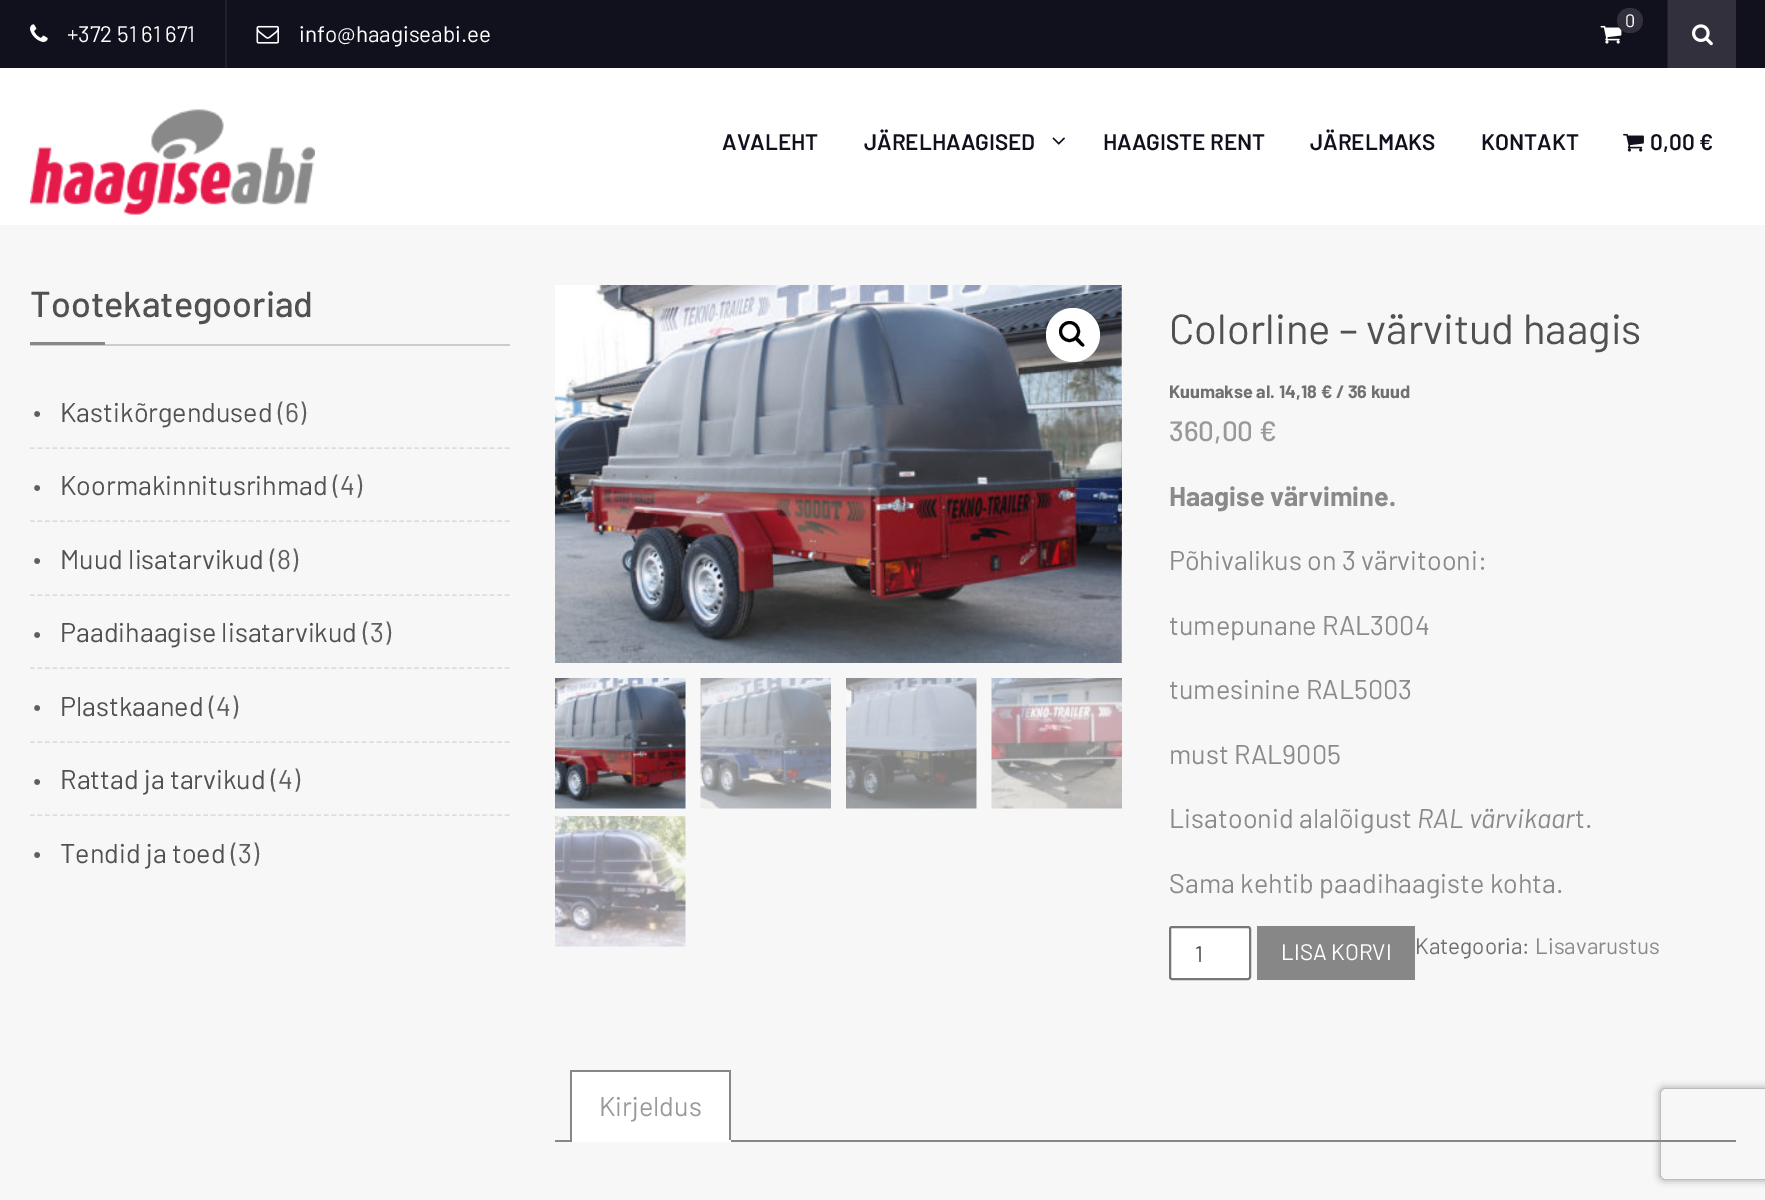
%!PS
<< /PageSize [1765 1200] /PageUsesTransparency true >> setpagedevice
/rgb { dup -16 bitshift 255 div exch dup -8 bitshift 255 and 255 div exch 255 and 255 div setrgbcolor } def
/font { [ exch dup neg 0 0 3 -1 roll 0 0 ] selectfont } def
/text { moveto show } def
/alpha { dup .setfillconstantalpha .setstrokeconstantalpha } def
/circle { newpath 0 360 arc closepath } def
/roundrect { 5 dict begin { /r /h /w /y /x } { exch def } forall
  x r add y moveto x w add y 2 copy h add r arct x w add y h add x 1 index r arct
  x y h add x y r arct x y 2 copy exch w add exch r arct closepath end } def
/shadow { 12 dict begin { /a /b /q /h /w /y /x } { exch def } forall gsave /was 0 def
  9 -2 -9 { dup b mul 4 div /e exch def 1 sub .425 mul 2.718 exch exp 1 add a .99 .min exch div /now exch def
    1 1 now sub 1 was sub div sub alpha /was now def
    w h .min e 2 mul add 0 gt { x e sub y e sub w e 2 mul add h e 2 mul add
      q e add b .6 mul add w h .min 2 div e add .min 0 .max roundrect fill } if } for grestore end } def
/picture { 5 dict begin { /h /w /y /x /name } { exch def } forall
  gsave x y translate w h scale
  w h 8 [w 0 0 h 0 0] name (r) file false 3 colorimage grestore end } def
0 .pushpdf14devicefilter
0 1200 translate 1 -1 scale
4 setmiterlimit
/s1 { /Barlow-Regular 18 font 16#FFFFFF rgb } def
/s2 { /Barlow-Regular 22.5 font 16#FFFFFF rgb } def
/s3 { /Barlow-SemiBold 22.5 font 16#11101D rgb } def
/s4 { /Barlow-Medium 36 font 16#515151 rgb } def
/s5 { /Barlow-Regular 52 font 16#5F5F5F rgb } def
/s6 { /Barlow-Regular 27 font 16#515151 rgb } def
/s7 { /Barlow-Regular 27 font 16#5F5F5F rgb } def
/s8 { /Barlow-Regular 42 font 16#515151 rgb } def
/s9 { /Barlow-Bold 18 font 16#707070 rgb } def
/s10 { /Barlow-Medium 28 font 16#999999 rgb } def
/s11 { /Barlow-Bold 27 font 16#8A8A8A rgb } def
/s12 { /Barlow-Regular 27 font 16#8A8A8A rgb } def
/s13 { /Barlow-Italic 27 font 16#8A8A8A rgb } def
/s14 { /Barlow-Regular 22.5 font 16#404040 rgb } def
/s15 { /Barlow-Regular 22.5 font 16#707070 rgb } def
/s16 { /Barlow-Regular 22.5 font 16#8A8A8A rgb } def
/s17 { /Barlow-Regular 27 font 16#999999 rgb } def
16#F7F7F7 rgb
0 0 1765 1200 rectfill
16#11101D rgb
0 0 1765 68 rectfill
16#22202E rgb
1667 0 1 68 rectfill
(pic1.raw) 1600 25 22 19 picture
16#31303C rgb
1617 8 26 25 12.5 roundrect fill
s1
(0) 1625 27 text
16#31303C rgb
1668 0 68 68 rectfill
(pic2.raw) 1692 24 21 22 picture
16#22202E rgb
225 0 2 68 rectfill
(pic3.raw) 30 24 18 18 picture
s2
(+372 51 61 671) 67 42 text
(pic4.raw) 256 25 23 19 picture
(info@haagiseabi.ee) 299 42 text
0 68 1765 157 rectfill
(pic5.raw) 30 109 285 106 picture
s3
(AVALEHT) 722 150 text
(JÄRELHAAGISED) 864 150 text
(pic6.raw) 1052 137 13 8 picture
(HAAGISTE RENT) 1103 150 text
(JÄRELMAKS) 1310 150 text
(KONTAKT) 1481 150 text
(pic7.raw) 1623 133 21 19 picture
(0,00 €) 1650 150 text
16#CCCCCC rgb
30 344 480 2 rectfill
s4
(Tootekategooriad) 30 317 text
16#878787 rgb
30 342 75 3 rectfill
16#DDDDDD rgb
1.5 setlinewidth
[4.5 3.04] 0 setdash
30 448 moveto 510 448 lineto stroke
s5
(.) 30 417 text
s6
(Kastikõrgendused) 60 422 text
s7
(\(6\)) 278 422 text
16#DDDDDD rgb
30 521 moveto 510 521 lineto stroke
s5
(.) 30 491 text
s6
(Koormakinnitusrihmad) 60 495 text
s7
(\(4\)) 333 495 text
16#DDDDDD rgb
30 595 moveto 510 595 lineto stroke
s5
(.) 30 564 text
s6
(Muud lisatarvikud) 60 569 text
s7
(\(8\)) 270 569 text
16#DDDDDD rgb
30 668 moveto 510 668 lineto stroke
s5
(.) 30 638 text
s6
(Paadihaagise lisatarvikud) 60 642 text
s7
(\(3\)) 363 642 text
16#DDDDDD rgb
30 742 moveto 510 742 lineto stroke
s5
(.) 30 711 text
s6
(Plastkaaned) 60 716 text
s7
(\(4\)) 209 716 text
16#DDDDDD rgb
30 815 moveto 510 815 lineto stroke
s5
(.) 30 785 text
s6
(Rattad ja tarvikud) 60 789 text
s7
(\(4\)) 271 789 text
s5
(.) 30 858 text
s6
(Tendid ja toed) 60 863 text
s7
(\(3\)) 231 863 text
(pic8.raw) 555 285 567 378 picture
(pic9.raw) 1121 285 1 378 picture
16#FFFFFF rgb
1073 335 27 circle fill
16#000000 rgb
3 setlinewidth
[] 0 setdash
1069.5 331.5 9 circle stroke
1075.5 338 moveto 1077 336 1080 340 1081 341 curveto 1081.5 342 1085.5 344.5 1084 346 curveto 1082.5 348 1079.5 344 1078.5 343 curveto 1077.5 342 1074 339.5 1075.5 338 curveto closepath fill
(pic10.raw) 555 678 131 131 picture
(pic11.raw) 700 678 131 131 picture
(pic12.raw) 846 678 131 131 picture
(pic13.raw) 991 678 131 131 picture
(pic14.raw) 555 816 131 131 picture
s8
(Colorline – värvitud haagis) 1169 344 text
s9
(Kuumakse al. 14,18 € / 36 kuud) 1169 398 text
s10
(360,00 €) 1169 441 text
s11
(Haagise värvimine.) 1169 506 text
s12
(Põhivalikus on 3 värvitooni:) 1169 570 text
(tumepunane RAL3004) 1169 635 text
(tumesinine RAL5003) 1169 699 text
(must RAL9005) 1169 764 text
(Lisatoonid alalõigust) 1169 828 text
s13
(RAL värvikaar) 1417 828 text
s12
(t.) 1575 828 text
(Sama kehtib paadihaagiste kohta.) 1169 893 text
16#FFFFFF rgb
1170 927 80 52 2 roundrect gsave fill grestore
16#767676 rgb
2 setlinewidth
stroke
s14
(1) 1195 962 text
16#878787 rgb
1257 926 158 54 rectfill
s2
(LISA KORVI) 1281 960 text
s15
(Kategooria:) 1415 954 text
s16
(Lisavarustus) 1535 954 text
16#FFFFFF rgb
572 1072 157 68 rectfill
16#878787 rgb
570 1070 161 2 rectfill
gsave
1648 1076 moveto 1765 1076 lineto 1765 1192 lineto 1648 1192 lineto closepath 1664 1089 moveto 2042 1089 lineto 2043.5 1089 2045 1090.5 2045 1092 curveto 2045 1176 lineto 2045 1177.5 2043.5 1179 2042 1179 curveto 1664 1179 lineto 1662.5 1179 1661 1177.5 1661 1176 curveto 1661 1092 lineto 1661 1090.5 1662.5 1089 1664 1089 curveto closepath eoclip newpath
16#808080 rgb
1661 1089 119 90 3 4 1 shadow
grestore
555 1140 1181 2 rectfill
729 1070 2 72 rectfill
16#FFFFFF rgb
570 1140 161 2 rectfill
16#878787 rgb
570 1070 2 72 rectfill
s17
(Kirjeldus) 599 1116 text
.poppdf14devicefilter showpage
